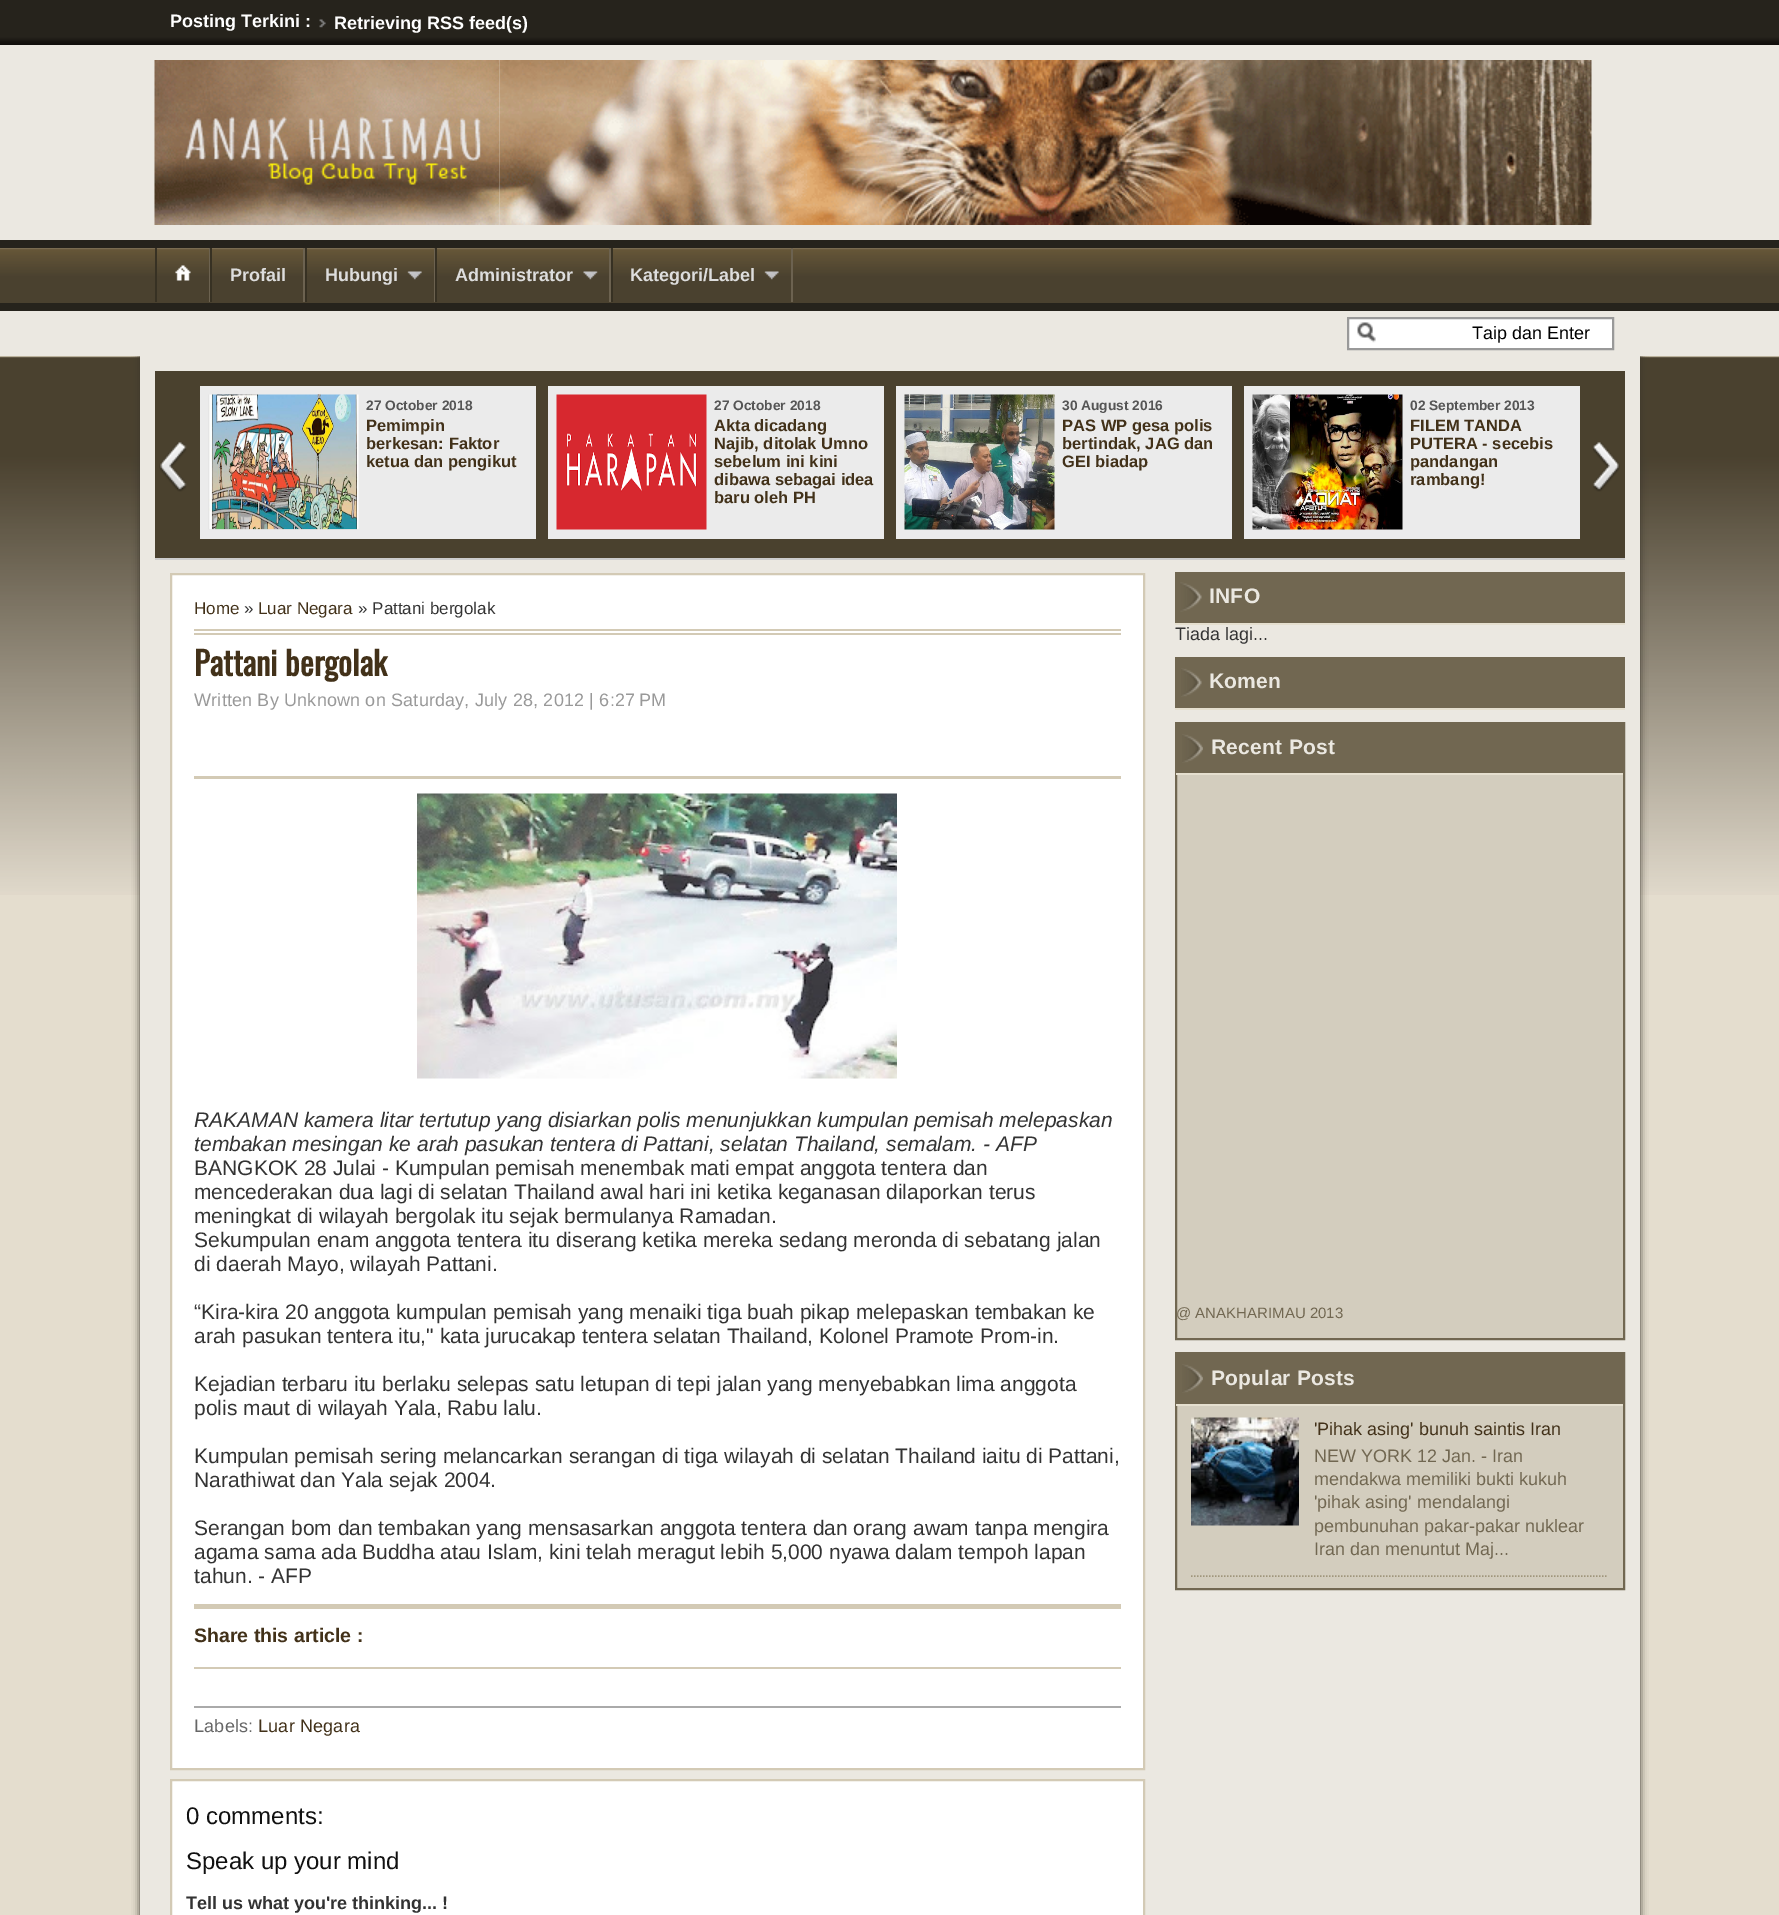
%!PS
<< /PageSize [1779 1915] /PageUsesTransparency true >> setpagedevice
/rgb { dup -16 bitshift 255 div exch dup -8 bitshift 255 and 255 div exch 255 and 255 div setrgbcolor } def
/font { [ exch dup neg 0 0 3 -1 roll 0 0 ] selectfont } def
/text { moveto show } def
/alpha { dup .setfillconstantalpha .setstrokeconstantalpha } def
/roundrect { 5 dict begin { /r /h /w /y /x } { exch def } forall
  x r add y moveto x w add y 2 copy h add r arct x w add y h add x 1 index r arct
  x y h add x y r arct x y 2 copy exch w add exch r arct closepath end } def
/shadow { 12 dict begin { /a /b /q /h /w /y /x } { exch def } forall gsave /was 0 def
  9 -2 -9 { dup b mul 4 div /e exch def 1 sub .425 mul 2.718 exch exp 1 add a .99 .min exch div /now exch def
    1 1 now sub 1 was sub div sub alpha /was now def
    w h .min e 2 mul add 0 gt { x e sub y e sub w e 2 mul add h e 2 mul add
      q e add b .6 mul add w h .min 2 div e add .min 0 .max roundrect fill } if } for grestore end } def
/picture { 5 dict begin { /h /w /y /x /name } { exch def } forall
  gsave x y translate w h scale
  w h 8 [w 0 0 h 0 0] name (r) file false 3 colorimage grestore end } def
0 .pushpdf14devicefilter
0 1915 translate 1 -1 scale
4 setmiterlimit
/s1 { /LiberationSans-Bold 18 font 16#FFFFFF rgb } def
/s2 { /LiberationSans-Bold 18 font 16#DDDDDD rgb } def
/s3 { /LiberationSans-Regular 18 font 16#000000 rgb } def
/s4 { /LiberationSans-Bold 13.75 font 16#555555 rgb } def
/s5 { /LiberationSans-Bold 16.5 font 16#423119 rgb } def
/s6 { /LiberationSans-Regular 17 font 16#423119 rgb } def
/s7 { /LiberationSans-Regular 17 font 16#333333 rgb } def
/s8 { /Oswald-Bold 32.5 font 16#423119 rgb } def
/s9 { /LiberationSans-Italic 21 font 16#333333 rgb } def
/s10 { /LiberationSans-Regular 21 font 16#333333 rgb } def
/s11 { /LiberationSans-Bold 19.5 font 16#423119 rgb } def
/s12 { /LiberationSans-Regular 24 font 16#111111 rgb } def
/s13 { /LiberationSans-Bold 18 font 16#333333 rgb } def
/s14 { /LiberationSans-Regular 18 font 16#333333 rgb } def
/s15 { /LiberationSans-Regular 15 font 16#716751 rgb } def
/s16 { /LiberationSans-Regular 18 font 16#423119 rgb } def
/s17 { /LiberationSans-Regular 18 font 16#716751 rgb } def
16#FFFFFF rgb
0 0 1779 1915 rectfill
(pic1.raw) 0 0 1779 45 picture
s1
(Posting Terkini :) 170 27 text
(pic2.raw) 319 19 7 9 picture
(Retrieving RSS feed\(s\)) 334 29 text
16#EBE8E1 rgb
0 45 1779 195 rectfill
(pic3.raw) 154 60 346 165 picture
(pic4.raw) 499 60 1093 165 picture
(pic5.raw) 0 248 1779 55 picture
16#26231C rgb
0 240 1779 8 rectfill
0 303 1779 8 rectfill
16#6C6250 rgb
209 248 1 54 rectfill
16#373123 rgb
155 248 2 54 rectfill
(pic6.raw) 175 265 16 16 picture
16#6C6250 rgb
303 248 2 54 rectfill
16#373123 rgb
210 248 2 54 rectfill
s2
(Profail) 230 281 text
(pic7.raw) 407 271 15 9 picture
16#6C6250 rgb
434 248 1 54 rectfill
16#373123 rgb
305 248 2 54 rectfill
s2
(Hubungi) 325 281 text
(pic8.raw) 583 271 15 9 picture
16#6C6250 rgb
609 248 2 54 rectfill
16#373123 rgb
435 248 2 54 rectfill
s2
(Administrator) 455 281 text
(pic9.raw) 764 271 15 9 picture
16#6C6250 rgb
791 248 2 54 rectfill
16#373123 rgb
611 248 2 54 rectfill
s2
(Kategori/Label) 630 281 text
16#E4DDCE rgb
0 895 1779 1020 rectfill
(pic11.raw) 0 356 1779 539 picture
16#3B362C rgb
140 356 1500 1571 0 4 1 shadow
16#EBE8E1 rgb
0 311 1779 45 rectfill
16#FFFFFF rgb
1349 319 263 29 rectfill
(pic10.raw) 1357 322 19 21 picture
16#999999 rgb
2 setlinewidth
1348 318 265 31 rectstroke
s3
(Taip dan Enter) 1472 339 text
16#EBE8E1 rgb
140 356 1500 1559 rectfill
16#4A412E rgb
155 371 1470 187 rectfill
16#CCCCCC rgb
155 558 1470 2 rectfill
(pic12.raw) 159 442 28 50 picture
16#EBEBEB rgb
200 386 336 153 rectfill
(pic13.raw) 208 394 151 136 picture
s4
(27 October 2018) 366 410 text
s5
(Pemimpin) 366 431 text
(berkesan: Faktor) 366 449 text
(ketua dan pengikut) 366 467 text
16#EBEBEB rgb
548 386 336 153 rectfill
(pic14.raw) 556 394 151 136 picture
s4
(27 October 2018) 714 410 text
s5
(Akta dicadang) 714 431 text
(Najib, ditolak Umno) 714 449 text
(sebelum ini kini) 714 467 text
(dibawa sebagai idea) 714 485 text
(baru oleh PH) 714 503 text
16#EBEBEB rgb
896 386 336 153 rectfill
(pic15.raw) 904 394 151 136 picture
s4
(30 August 2016) 1062 410 text
s5
(PAS WP gesa polis) 1062 431 text
(bertindak, JAG dan) 1062 449 text
(GEI biadap) 1062 467 text
16#EBEBEB rgb
1244 386 336 153 rectfill
(pic16.raw) 1252 394 151 136 picture
s4
(02 September 2013) 1410 410 text
s5
(FILEM TANDA) 1410 431 text
(PUTERA - secebis) 1410 449 text
(pandangan) 1410 467 text
(rambang!) 1410 485 text
(pic17.raw) 1593 442 27 50 picture
16#FFFFFF rgb
171 574 moveto 1144 574 lineto 1144 1769 lineto 171 1769 lineto closepath gsave fill grestore
16#D3CAB5 rgb
stroke
194 629 927 2 rectfill
194 633 927 2 rectfill
s6
(Home) 194 614 text
s7
(») 244 614 text
s6
(Luar Negara) 258 614 text
s7
(» Pattani bergolak) 358 614 text
s8
(Pattani bergolak) 194 676 text
/LiberationSans-Regular 18 font
16#999999 rgb
194 706 moveto 0.18 0 (Written By Unknown on Saturday, July 28, 2012 | 6:27 PM) ashow
16#D3CAB5 rgb
194 776 927 3 rectfill
(pic18.raw) 417 793 480 286 picture
s9
(RAKAMAN kamera litar tertutup yang disiarkan polis menunjukkan kumpulan pemisah melepaskan) 194 1127 text
(tembakan mesingan ke arah pasukan tentera di Pattani, selatan Thailand, semalam. - AFP) 194 1151 text
s10
(BANGKOK 28 Julai - Kumpulan pemisah menembak mati empat anggota tentera dan) 194 1175 text
(mencederakan dua lagi di selatan Thailand awal hari ini ketika keganasan dilaporkan terus) 194 1199 text
(meningkat di wilayah bergolak itu sejak bermulanya Ramadan.) 194 1223 text
(Sekumpulan enam anggota tentera itu diserang ketika mereka sedang meronda di sebatang jalan) 194 1247 text
(di daerah Mayo, wilayah Pattani.) 194 1271 text
(“Kira-kira 20 anggota kumpulan pemisah yang menaiki tiga buah pikap melepaskan tembakan ke) 194 1319 text
(arah pasukan tentera itu," kata jurucakap tentera selatan Thailand, Kolonel Pramote Prom-in.) 194 1343 text
(Kejadian terbaru itu berlaku selepas satu letupan di tepi jalan yang menyebabkan lima anggota) 194 1391 text
(polis maut di wilayah Yala, Rabu lalu.) 194 1415 text
(Kumpulan pemisah sering melancarkan serangan di tiga wilayah di selatan Thailand iaitu di Pattani,) 194 1463 text
(Narathiwat dan Yala sejak 2004.) 194 1487 text
(Serangan bom dan tembakan yang mensasarkan anggota tentera dan orang awam tanpa mengira) 194 1535 text
(agama sama ada Buddha atau Islam, kini telah meragut lebih 5,000 nyawa dalam tempoh lapan) 194 1559 text
(tahun. - AFP) 194 1583 text
16#D3CAB5 rgb
194 1604 927 5 rectfill
194 1667 927 2 rectfill
s11
(Share this article :) 194 1642 text
16#AAAAAA rgb
194 1706 927 2 rectfill
/LiberationSans-Regular 18 font
16#666666 rgb
194 1732 moveto 0.18 0 (Labels:) ashow
16#423119 rgb
258 1732 moveto 0.18 0 (Luar Negara) ashow
16#FFFFFF rgb
171 1780 moveto 1144 1780 lineto 1144 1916 lineto 171 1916 lineto closepath gsave fill grestore
16#D3CAB5 rgb
stroke
s12
(0 comments:) 186 1824 text
(Speak up your mind) 186 1869 text
s13
(Tell us what you're thinking... !) 186 1909 text
16#716751 rgb
1175 572 450 51 rectfill
(pic19.raw) 1180 582 22 30 picture
16#E5DFCF rgb
1175 623 450 2 rectfill
/LiberationSans-Bold 21 font
16#EBE8E1 rgb
1209 603 moveto 0.25 0 (INFO) ashow
s14
(Tiada lagi...) 1175 640 text
16#716751 rgb
1175 657 450 51 rectfill
(pic20.raw) 1181 668 21 29 picture
16#E5DFCF rgb
1175 708 450 2 rectfill
/LiberationSans-Bold 21 font
16#EBE8E1 rgb
1209 688 moveto 0.25 0 (Komen) ashow
16#D3CDBE rgb
1177 775 446 563 rectfill
16#716751 rgb
1176 723 448 616 rectstroke
1177 724 446 49 rectfill
(pic21.raw) 1182 734 21 29 picture
16#E5DFCF rgb
1176 773 447 2 rectfill
16#EBE8E1 rgb
1211 754 moveto 0.25 0 (Recent Post) ashow
s15
(@ ANAKHARIMAU 2013) 1176 1318 text
16#D3CDBE rgb
1177 1406 446 182 rectfill
16#716751 rgb
1176 1353 448 236 rectstroke
1177 1354 446 50 rectfill
(pic21.raw) 1182 1364 21 29 picture
16#E5DFCF rgb
1176 1404 447 2 rectfill
/LiberationSans-Bold 21 font
16#EBE8E1 rgb
1211 1385 moveto 0.25 0 (Popular Posts) ashow
16#A0967C rgb
1.5 setlinewidth
[1.5 1.5] 0 setdash
1191 1576 moveto 1608 1576 lineto stroke
(pic22.raw) 1191 1417 108 109 picture
s16
('Pihak asing' bunuh saintis Iran) 1314 1435 text
s17
(NEW YORK 12 Jan. - Iran) 1314 1462 text
(mendakwa memiliki bukti kukuh) 1314 1485 text
('pihak asing' mendalangi) 1314 1508 text
(pembunuhan pakar-pakar nuklear) 1314 1532 text
(Iran dan menuntut Maj...) 1314 1555 text
.poppdf14devicefilter showpage
